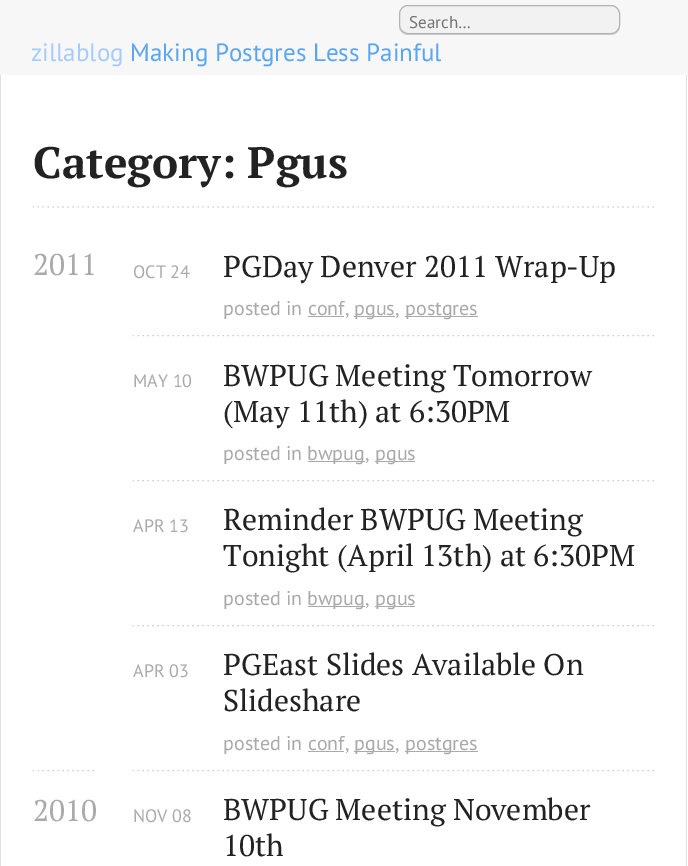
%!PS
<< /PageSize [688 866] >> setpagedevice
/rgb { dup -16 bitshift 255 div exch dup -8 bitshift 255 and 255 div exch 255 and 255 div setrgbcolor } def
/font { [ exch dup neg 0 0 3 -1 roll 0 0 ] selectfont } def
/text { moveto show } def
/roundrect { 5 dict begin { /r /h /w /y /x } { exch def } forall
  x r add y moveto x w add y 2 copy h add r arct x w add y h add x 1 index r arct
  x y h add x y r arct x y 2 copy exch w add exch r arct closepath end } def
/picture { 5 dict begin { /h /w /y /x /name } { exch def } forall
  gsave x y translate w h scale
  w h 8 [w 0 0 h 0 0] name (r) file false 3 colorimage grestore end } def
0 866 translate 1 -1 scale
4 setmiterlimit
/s1 { /PTSans-Regular 17 font 16#757575 rgb } def
/s2 { /PTSans-Regular 25 font 16#A6CCFB rgb } def
/s3 { /PTSans-Regular 25 font 16#5AA6F1 rgb } def
/s4 { /PTSerif-Bold 44 font 16#222222 rgb } def
/s5 { /PTSerif-Regular 30 font 16#AAAAAA rgb } def
/s6 { /PTSans-Regular 18 font 16#AAAAAA rgb } def
/s7 { /PTSerif-Regular 30 font 16#222222 rgb } def
/s8 { /PTSans-Regular 20 font 16#AAAAAA rgb } def
16#F7F7F7 rgb
0 0 688 866 rectfill
16#D1D1D1 rgb
399 28 moveto 400 32 404 35 408 35 curveto 611 35 lineto 616 35 620 31 620 26 curveto 620 25 lineto 620 30 616 34 611 34 curveto 407 34 lineto 404 34 400 31 399 28 curveto closepath fill
16#F2F2F2 rgb
399.5 5.5 220 28 8.5 roundrect gsave fill grestore
16#B3B3B3 rgb
stroke
s1
(Search…) 409 28 text
s2
(zillablog) 31 61 text
s3
(Making Postgres Less Painful) 130 61 text
16#E0E0E0 rgb
0 75 1 791 rectfill
16#FFFFFF rgb
1 75 687 791 rectfill
16#E0E0E0 rgb
686 75 1 791 rectfill
(pic1.raw) 32 206 622 2 picture
s4
(Category: Pgus) 33 178 text
s5
(2011) 33 275 text
(pic2.raw) 132 335 522 2 picture
s6
(OCT 24) 133 278 text
s7
(PGDay Denver 2011 Wrap-Up) 223 277 text
s8
(posted in conf,) 223 315 text
308 316 36 1 rectfill
354 316 41 1 rectfill
(pgus,) 354 315 text
405 316 73 1 rectfill
(postgres) 405 315 text
(pic2.raw) 132 480 522 2 picture
s6
(MAY 10) 133 387 text
s7
(BWPUG Meeting Tomorrow) 223 386 text
(\(May 11th\) at 6:30PM) 223 422 text
s8
(posted in) 223 460 text
308 461 57 1 rectfill
(bwpug,) 307 460 text
375 461 40 1 rectfill
(pgus) 375 460 text
(pic2.raw) 132 625 522 2 picture
s6
(APR 13) 133 532 text
s7
(Reminder BWPUG Meeting) 223 530 text
(Tonight \(April 13th\) at 6:30PM) 223 566 text
s8
(posted in) 223 605 text
308 606 57 1 rectfill
(bwpug,) 307 605 text
375 606 40 1 rectfill
(pgus) 375 605 text
(pic2.raw) 132 770 522 2 picture
s6
(APR 03) 133 677 text
s7
(PGEast Slides Available On) 223 675 text
(Slideshare) 223 711 text
s8
(posted in conf,) 223 750 text
308 751 36 1 rectfill
354 751 41 1 rectfill
(pgus,) 354 750 text
405 751 73 1 rectfill
(postgres) 405 750 text
(pic3.raw) 32 770 62 2 picture
s5
(2010) 33 821 text
s6
(NOV 08) 133 822 text
s7
(BWPUG Meeting November) 223 820 text
(10th) 223 856 text
showpage
